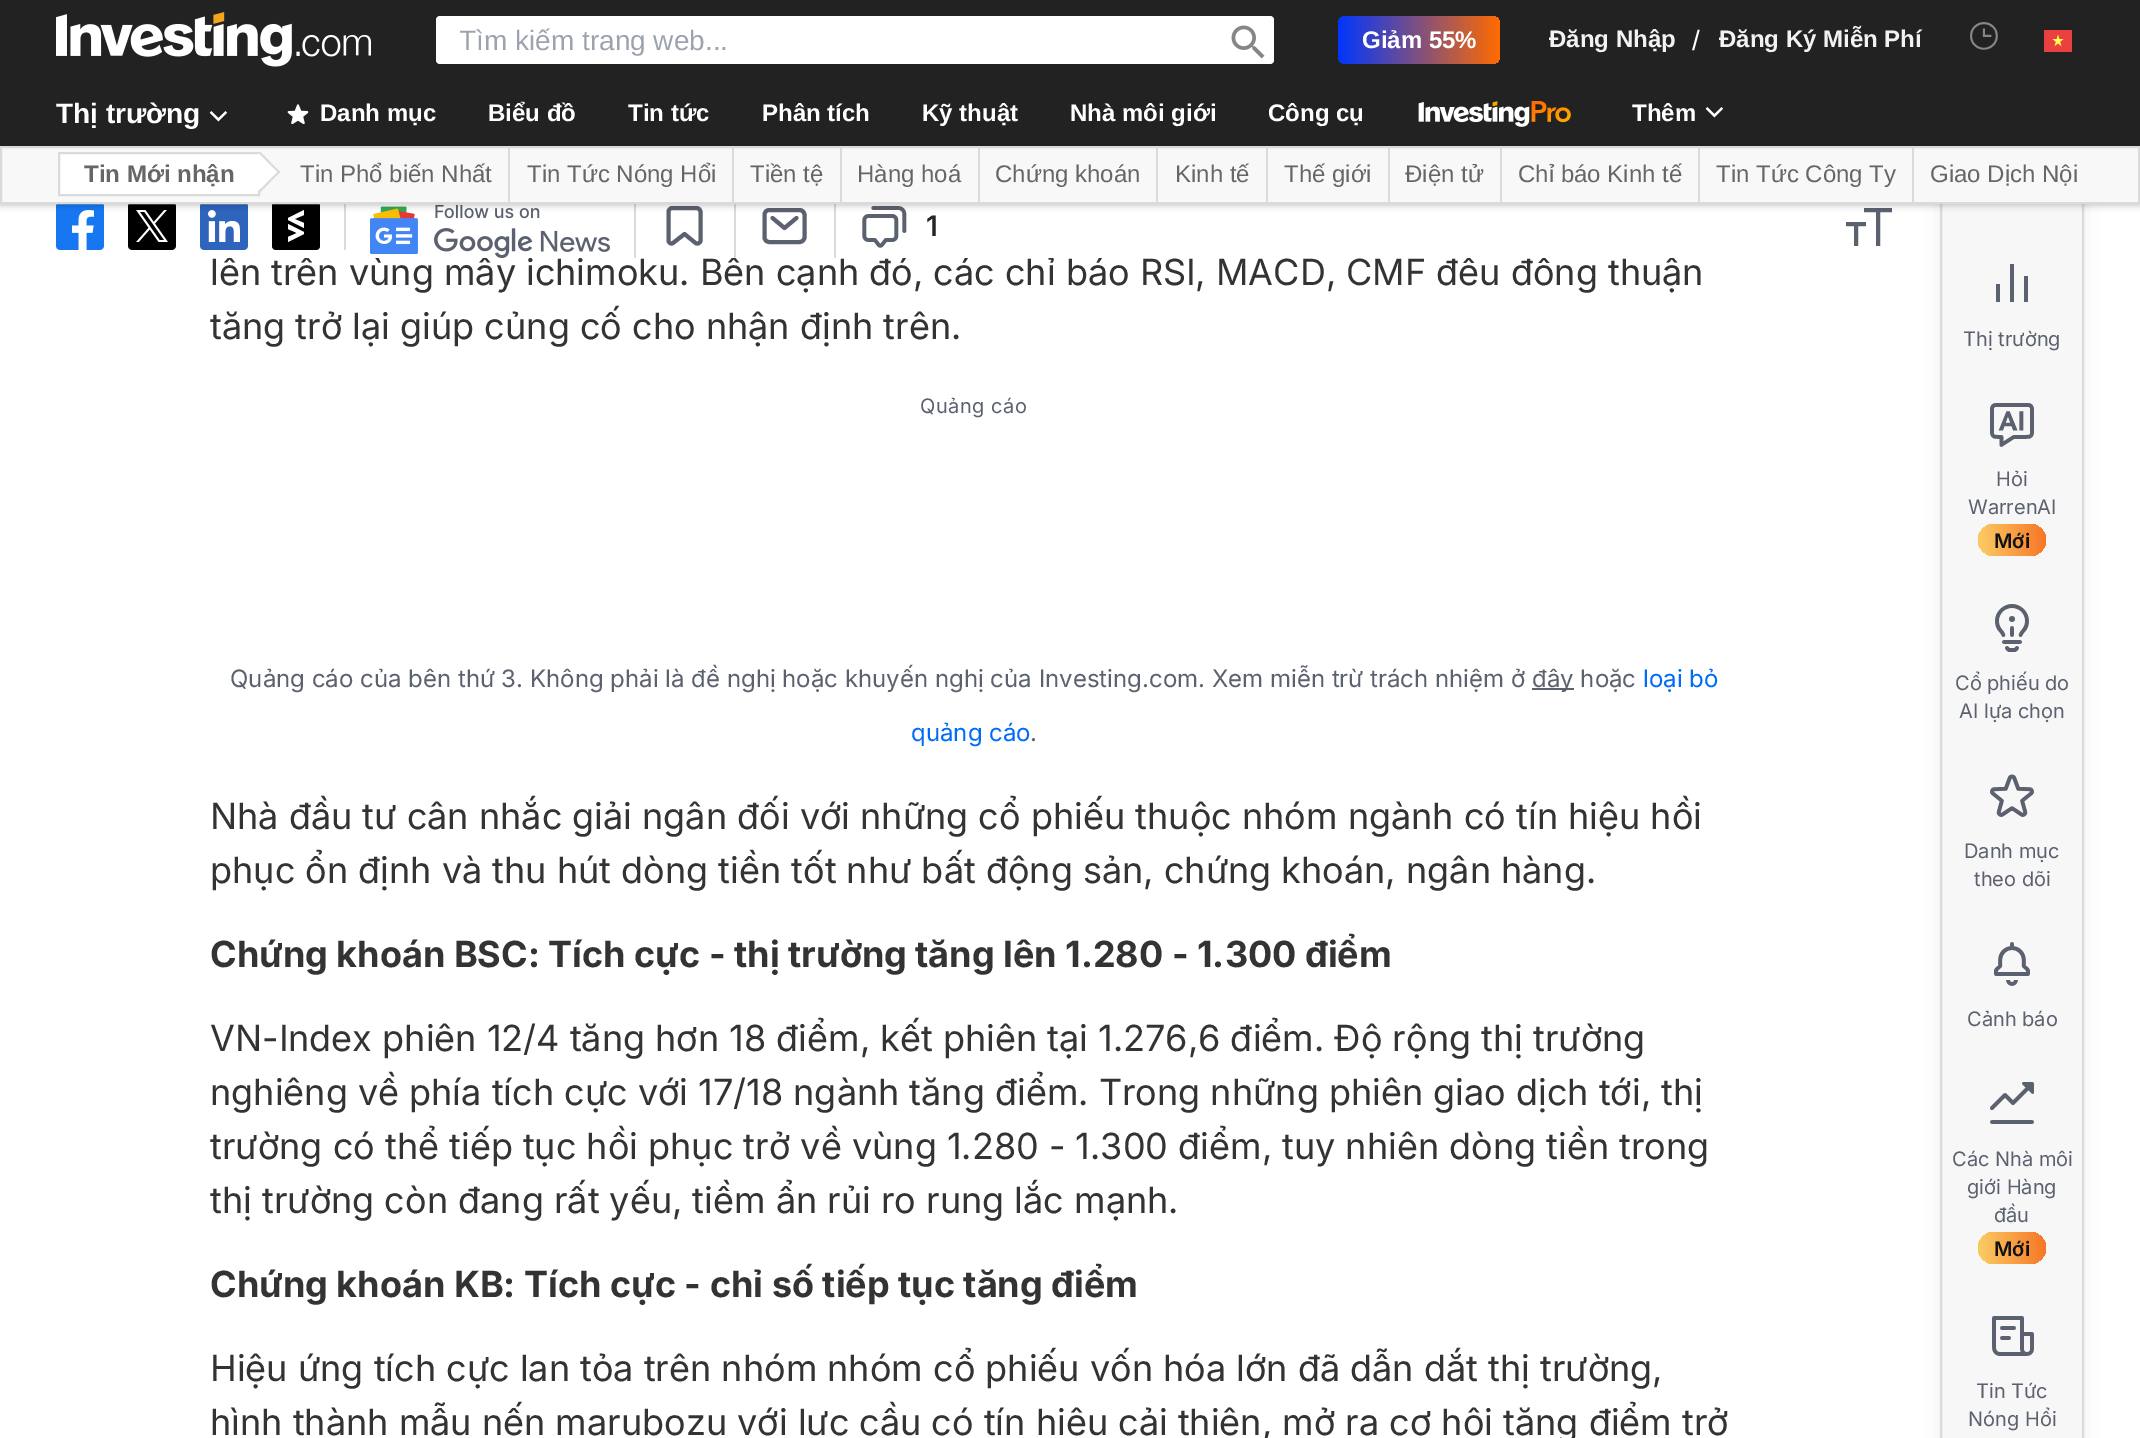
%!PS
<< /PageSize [2140 1438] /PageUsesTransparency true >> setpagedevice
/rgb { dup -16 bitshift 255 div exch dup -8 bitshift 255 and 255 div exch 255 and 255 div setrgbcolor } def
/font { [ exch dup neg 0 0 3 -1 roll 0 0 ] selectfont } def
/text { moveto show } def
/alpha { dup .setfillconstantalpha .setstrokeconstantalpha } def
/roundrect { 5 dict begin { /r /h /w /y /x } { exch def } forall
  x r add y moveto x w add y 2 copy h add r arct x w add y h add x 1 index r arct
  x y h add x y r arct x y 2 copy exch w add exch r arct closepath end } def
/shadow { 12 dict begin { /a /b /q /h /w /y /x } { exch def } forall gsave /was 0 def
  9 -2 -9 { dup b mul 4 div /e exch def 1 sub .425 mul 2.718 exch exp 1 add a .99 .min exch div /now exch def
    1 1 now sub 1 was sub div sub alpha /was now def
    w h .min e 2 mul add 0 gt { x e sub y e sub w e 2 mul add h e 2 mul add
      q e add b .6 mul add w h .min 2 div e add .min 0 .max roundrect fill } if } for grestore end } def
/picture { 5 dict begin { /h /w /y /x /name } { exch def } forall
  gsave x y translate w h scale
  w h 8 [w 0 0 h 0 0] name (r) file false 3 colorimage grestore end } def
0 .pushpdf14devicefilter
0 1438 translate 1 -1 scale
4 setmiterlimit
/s1 { /LiberationSans-Regular 28 font 16#9CA3AF rgb } def
/s2 { /LiberationSans-Bold 24 font 16#FFFFFF rgb } def
/s3 { /LiberationSans-Bold 24 font 16#F2F2F2 rgb } def
/s4 { /LiberationSans-Regular 28 font 16#FFFFFF rgb } def
/s5 { /LiberationSans-Bold 28 font 16#FFFFFF rgb } def
/s6 { /Inter-Regular 36 font 16#333333 rgb } def
/s7 { /LiberationSans-Bold 24 font 16#666666 rgb } def
/s8 { /LiberationSans-Regular 24 font 16#666666 rgb } def
/s9 { /Inter-SemiBold 28 font 16#232526 rgb } def
/s10 { /Inter-Regular 24 font 16#5B616E rgb } def
/s11 { /Inter-Regular 24 font 16#006BF6 rgb } def
/s12 { /Inter-Bold 36 font 16#333333 rgb } def
/s13 { /Inter-Regular 20 font 16#5B616E rgb } def
/s14 { /Inter-SemiBold 20 font 16#111111 rgb } def
16#FFFFFF rgb
0 0 2140 1438 rectfill
16#232526 rgb
1940 -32 144 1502 8 8 0.07 shadow
16#F7F7F8 rgb
1943 204 138 1234 rectfill
16#D9DCDF rgb
2 setlinewidth
1941 -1 142 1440 rectstroke
16#222222 rgb
0 0 2140 146 rectfill
(pic1.raw) 56 12 315 55 picture
16#FFFFFF rgb
436 16 838 48 4 roundrect fill
gsave
460 24 734 32 rectclip
s1
(Tìm kiếm trang web...) 459 50 text
grestore
(pic2.raw) 1231 25 34 34 picture
gsave 1338 16 162 48 8 roundrect clip newpath
<< /ShadingType 2 /ColorSpace /DeviceRGB /Coords [1500 40 1338 40] /Extend [true true] /Function << /FunctionType 2 /Domain [0 1] /C0 [1 0.42 0] /C1 [0.004 0.212 0.996] /N 1 >> >> shfill grestore
s2
(Giảm 55%) 1362 48 text
s3
(Đăng Nhập) 1549 47 text
s4
(/) 1692 50 text
s3
(Đăng Ký Miễn Phí) 1719 47 text
(pic3.raw) 1970 22 28 28 picture
(pic4.raw) 2044 30 28 22 picture
s5
(Thị trường) 56 123 text
(pic5.raw) 209 111 19 11 picture
(pic6.raw) 287 104 22 20 picture
s2
(Danh mục) 320 121 text
(Biểu đồ) 488 121 text
(Tin tức) 628 121 text
(Phân tích) 762 121 text
(Kỹ thuật) 922 121 text
(Nhà môi giới) 1070 121 text
(Công cụ) 1268 121 text
(pic7.raw) 1418 101 153 26 picture
(Thêm) 1632 121 text
(pic5.raw) 1705 107 19 11 picture
16#DADADA rgb
344 202 2 48 rectfill
(pic8.raw) 56 204 48 46 picture
(pic9.raw) 128 204 48 46 picture
(pic10.raw) 200 204 48 46 picture
16#000000 rgb
272 202 48 48 4 roundrect fill
16#FFFFFF rgb
304 228 moveto 288 220 lineto 288 218 lineto 304 210 lineto 304 215 lineto 294.5 219 lineto 304 223 lineto closepath 304 234 moveto 288 242 lineto 288 237 lineto 297 233 lineto 288 229 lineto 288 224 lineto 304 232 lineto closepath fill
s6
(lên trên vùng mây ichimoku. Bên cạnh đó, các chỉ báo RSI, MACD, CMF đều đồng thuận) 210 285 text
16#FFFFFF rgb
227 251 1447 7 rectfill
16#DADADA rgb
634 202 2 56 rectfill
(pic11.raw) 370 204 240 54 picture
734 202 2 56 rectfill
16#5B616E rgb
4 setlinewidth
1 setlinejoin
668.5 212 moveto 668.5 210 670 208 672.5 208 curveto 696.5 208 lineto 698.5 208 700.5 210 700.5 212 curveto 700.5 240.5 lineto 700.5 243 697.5 244.5 695.5 243 curveto 684.5 234 lineto 673 243 lineto 671.5 244.5 668.5 243 668.5 240.5 curveto closepath stroke
16#DADADA rgb
834 202 2 56 rectfill
16#5B616E rgb
0 setlinejoin
764.5 215 moveto 764.5 212 766.5 210 769.5 210 curveto 799.5 210 lineto 802 210 804.5 212 804.5 215 curveto 804.5 237 lineto 804.5 240 802 242 799.5 242 curveto 769.5 242 lineto 766.5 242 764.5 240 764.5 237 curveto closepath stroke
(pic12.raw) 862 206 45 42 picture
2 setlinecap
1 setlinejoin
1866 210 moveto 1878 210 lineto 1878 210 moveto 1890 210 lineto 1878 210 moveto 1878 244 lineto 1848 224 moveto 1856 224 lineto 1856 224 moveto 1864 224 lineto 1856 224 moveto 1856 244 lineto stroke
16#000000 rgb
0 148 2140 58 0 3 0.2 shadow
16#F8F8F8 rgb
1 147 moveto 2139 147 lineto 2139 203 lineto 1 203 lineto closepath gsave fill grestore
16#DADADA rgb
2 setlinewidth
0 setlinecap
0 setlinejoin
stroke
16#FFFFFF rgb
59 153 moveto 259 153 lineto 259 195 lineto 59 195 lineto closepath gsave fill grestore
16#DADADA rgb
stroke
s7
(Tin Mới nhận) 84 182 text
16#FFFFFF rgb
260.5 152 moveto 280 172 lineto 260.5 192 lineto 240.5 172 lineto closepath fill
16#DADADA rgb
260.5 152 moveto 280 172 lineto 279 173.5 lineto 259 153.5 lineto closepath fill
279 170.5 moveto 280 172 lineto 260.5 192 lineto 259 190.5 lineto closepath fill
508 148 2 54 rectfill
s8
(Tin Phổ biến Nhất) 300 182 text
16#DADADA rgb
732 148 2 54 rectfill
s8
(Tin Tức Nóng Hổi) 527 182 text
16#DADADA rgb
840 148 2 54 rectfill
s8
(Tiền tệ) 750 182 text
16#DADADA rgb
978 148 2 54 rectfill
s8
(Hàng hoá) 857 182 text
16#DADADA rgb
1156 148 2 54 rectfill
s8
(Chứng khoán) 995 182 text
16#DADADA rgb
1266 148 2 54 rectfill
s8
(Kinh tế) 1175 182 text
16#DADADA rgb
1388 148 2 54 rectfill
s8
(Thế giới) 1284 182 text
16#DADADA rgb
1500 148 2 54 rectfill
s8
(Điện tử) 1405 182 text
16#DADADA rgb
1698 148 2 54 rectfill
s8
(Chỉ báo Kinh tế) 1518 182 text
16#DADADA rgb
1912 148 2 54 rectfill
s8
(Tin Tức Công Ty) 1716 182 text
(Giao Dịch Nội) 1930 182 text
16#5B616E rgb
4 setlinewidth
1 setlinecap
1 setlinejoin
796.5 218 moveto 784.5 228 lineto 772.5 218 lineto stroke
s9
(1) 926 236 text
s6
(tăng trở lại giúp củng cố cho nhận định trên.) 210 339 text
/Inter-Regular 20 font
16#5B616E rgb
920 413 moveto 0.5 0 (Quảng cáo) ashow
s10
(Quảng cáo của bên thứ 3. Không phải là đề nghị hoặc khuyến nghị của Investing.com. Xem miễn trừ trách nhiệm ở) 230 687 text
1532 688 42 2 rectfill
(đây hoặc) 1532 687 text
s11
(loại bỏ) 1643 687 text
(quảng cáo) 911 741 text
s10
(.) 1030 741 text
s6
(Nhà đầu tư cân nhắc giải ngân đối với những cổ phiếu thuộc nhóm ngành có tín hiệu hồi) 210 829 text
(phục ổn định và thu hút dòng tiền tốt như bất động sản, chứng khoán, ngân hàng.) 210 883 text
s12
(Chứng khoán BSC: Tích cực - thị trường tăng lên 1.280 - 1.300 điểm) 210 967 text
s6
(VN-Index phiên 12/4 tăng hơn 18 điểm, kết phiên tại 1.276,6 điểm. Độ rộng thị trường) 210 1051 text
(nghiêng về phía tích cực với 17/18 ngành tăng điểm. Trong những phiên giao dịch tới, thị) 210 1105 text
(trường có thể tiếp tục hồi phục trở về vùng 1.280 - 1.300 điểm, tuy nhiên dòng tiền trong) 210 1159 text
(thị trường còn đang rất yếu, tiềm ẩn rủi ro rung lắc mạnh.) 210 1213 text
s12
(Chứng khoán KB: Tích cực - chỉ số tiếp tục tăng điểm) 210 1297 text
s6
(Hiệu ứng tích cực lan tỏa trên nhóm nhóm cổ phiếu vốn hóa lớn đã dẫn dắt thị trường,) 210 1381 text
(hình thành mẫu nến marubozu với lực cầu có tín hiệu cải thiện, mở ra cơ hội tăng điểm trở) 210 1435 text
(pic13.raw) 1996 264 32 38 picture
s13
(Thị trường) 1963 346 text
(pic14.raw) 1990 403 44 44 picture
(Hỏi) 1996 486 text
(WarrenAI) 1968 514 text
gsave 1978 524 68 32 16 roundrect clip newpath
<< /ShadingType 2 /ColorSpace /DeviceRGB /Coords [1977 542 2057 537] /Extend [true true] /Function << /FunctionType 3 /Domain [0 1] /Functions [<< /FunctionType 2 /Domain [0 1] /C0 [0.98 0.78 0.38] /C1 [0.98 0.78 0.38] /N 1 >> << /FunctionType 2 /Domain [0 1] /C0 [0.98 0.78 0.38] /C1 [0.969 0.408 0.11] /N 1 >>] /Bounds [0.07] /Encode [0 1 0 1] >> >> shfill grestore
s14
(Mới) 1994 548 text
(pic15.raw) 1995 604 34 48 picture
s13
(Cổ phiếu do) 1955 690 text
(AI lựa chọn) 1959 718 text
(pic16.raw) 1990 774 44 43 picture
(Danh mục) 1964 858 text
(theo dõi) 1974 886 text
(pic17.raw) 1994 942 36 44 picture
(Cảnh báo) 1967 1026 text
(pic18.raw) 1990 1082 44 42 picture
(Các Nhà môi) 1952 1166 text
(giới Hàng) 1967 1194 text
(đầu) 1994 1222 text
gsave 1978 1232 68 32 16 roundrect clip newpath
<< /ShadingType 2 /ColorSpace /DeviceRGB /Coords [1977 1250 2057 1245] /Extend [true true] /Function << /FunctionType 3 /Domain [0 1] /Functions [<< /FunctionType 2 /Domain [0 1] /C0 [0.98 0.78 0.38] /C1 [0.98 0.78 0.38] /N 1 >> << /FunctionType 2 /Domain [0 1] /C0 [0.98 0.78 0.38] /C1 [0.969 0.408 0.11] /N 1 >>] /Bounds [0.07] /Encode [0 1 0 1] >> >> shfill grestore
s14
(Mới) 1994 1256 text
(pic19.raw) 1992 1316 42 40 picture
s13
(Tin Tức) 1976 1398 text
(Nóng Hổi) 1968 1426 text
.poppdf14devicefilter showpage
